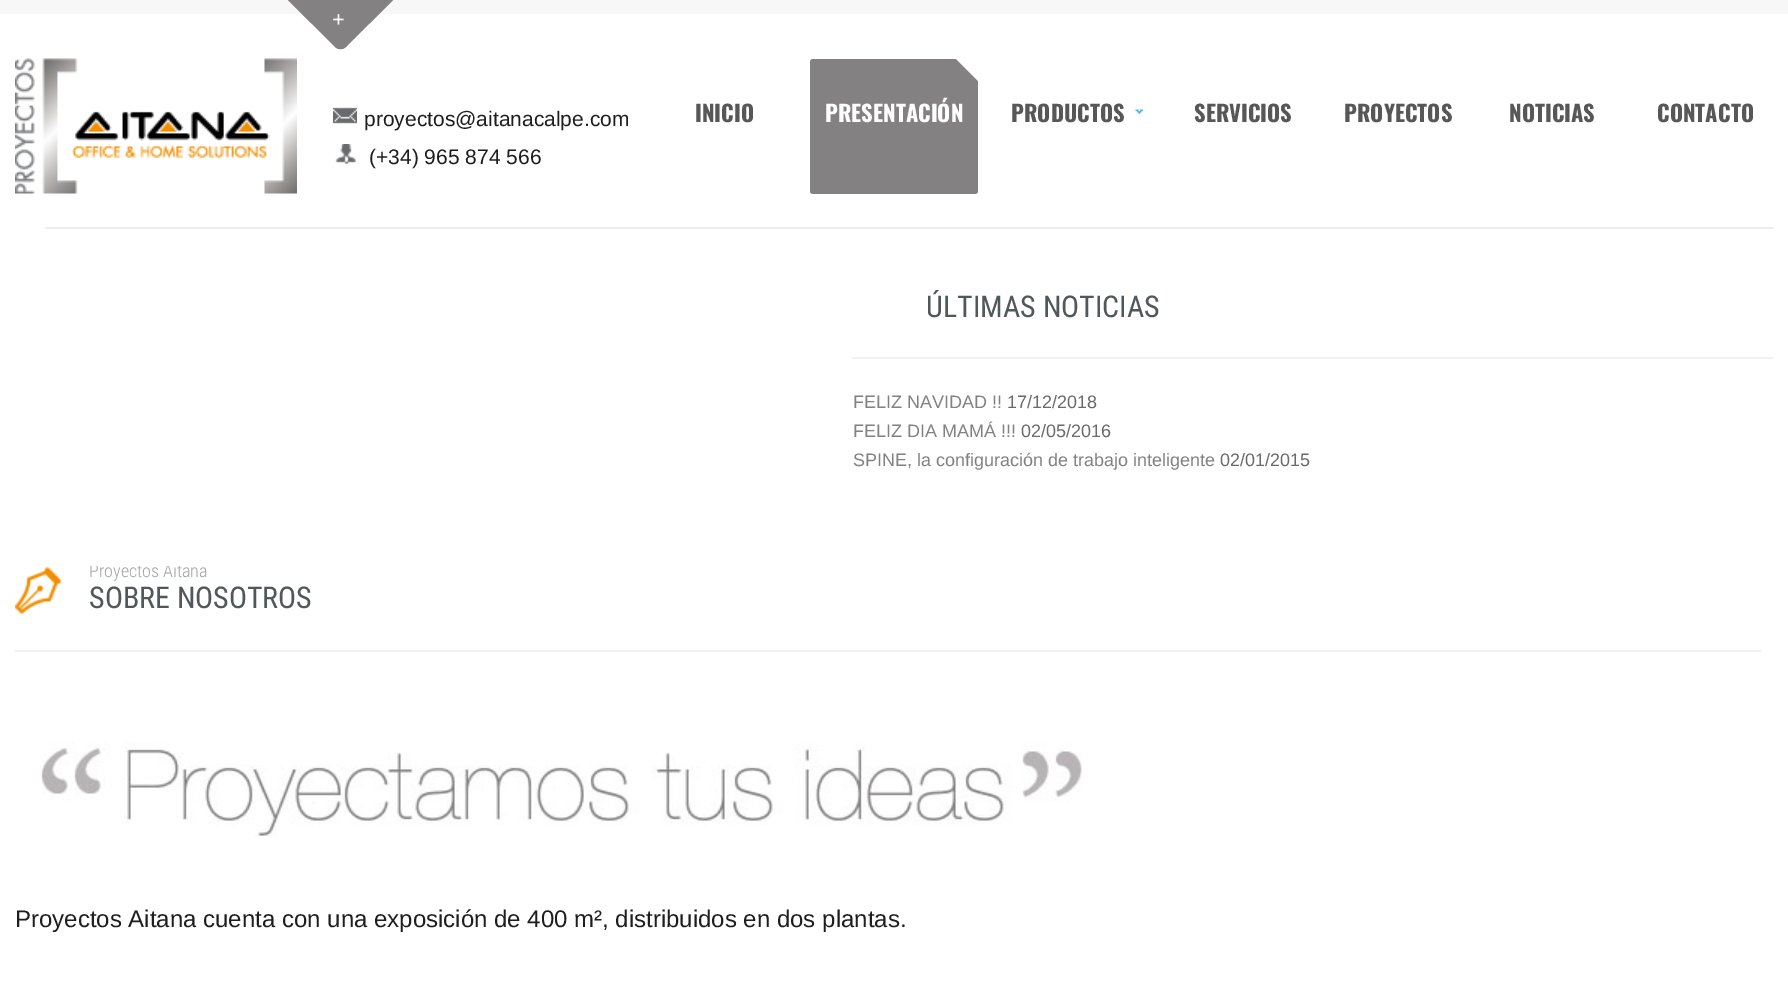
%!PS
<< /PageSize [1788 981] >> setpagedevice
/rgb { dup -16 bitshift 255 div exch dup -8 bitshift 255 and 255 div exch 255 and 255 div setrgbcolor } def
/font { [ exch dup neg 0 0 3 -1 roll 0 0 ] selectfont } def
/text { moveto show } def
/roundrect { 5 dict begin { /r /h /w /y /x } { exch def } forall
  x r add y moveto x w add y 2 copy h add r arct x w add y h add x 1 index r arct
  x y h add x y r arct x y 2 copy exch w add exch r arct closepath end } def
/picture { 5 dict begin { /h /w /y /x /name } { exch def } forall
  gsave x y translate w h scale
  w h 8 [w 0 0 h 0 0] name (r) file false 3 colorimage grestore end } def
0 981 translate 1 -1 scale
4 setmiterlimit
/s1 { /LiberationSans-Regular 21 font 16#1E1E1E rgb } def
/s2 { /Oswald-Bold 22.5 font 16#575757 rgb } def
/s3 { /Oswald-Bold 22.5 font 16#FFFFFF rgb } def
/s4 { /RobotoCondensed-Regular 30 font 16#51585B rgb } def
/s5 { /LiberationSans-Regular 18 font 16#838182 rgb } def
/s6 { /LiberationSans-Regular 18 font 16#696A6C rgb } def
/s7 { /RobotoCondensed-Light 18 font 16#A3A3A3 rgb } def
/s8 { /LiberationSans-Regular 24 font 16#1E1E1E rgb } def
16#FFFFFF rgb
0 0 1788 981 rectfill
16#F7F7F7 rgb
0 0 1788 14 rectfill
16#838182 rgb
346 -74 moveto 401 -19 lineto 404 -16 404 -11 401 -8 curveto 346 47 lineto 343 50 338 50 335 47 curveto 280 -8 lineto 277 -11 277 -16 280 -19 curveto 335 -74 lineto 338 -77 343 -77 346 -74 curveto closepath fill
(pic1.raw) 333 14 11 11 picture
(pic2.raw) 15 58 282 136 picture
(pic3.raw) 333 107 24 17 picture
s1
(proyectos@aitanacalpe.com) 364 126 text
(pic4.raw) 335 144 21 20 picture
(\(+34\) 965 874 566) 369 164 text
s2
(INICIO) 695 122 text
16#838182 rgb
810 59 168 135 3 roundrect fill
16#FFFFFF rgb
955.5 58.5 moveto 978 58.5 lineto 978 81 lineto closepath fill
(PRESENTACIÓN) 825 122 text
(pic5.raw) 1135 109 8 5 picture
s2
(PRODUCTOS) 1011 122 text
(SERVICIOS) 1194 122 text
(PROYECTOS) 1344 122 text
(NOTICIAS) 1509 122 text
(CONTACTO) 1657 122 text
16#EDEDED rgb
45 227 1728 2 rectfill
16#F1F1F1 rgb
852 357 921 2 rectfill
s4
(ÚLTIMAS NOTICIAS) 926 317 text
s5
(FELIZ NAVIDAD !!) 853 408 text
s6
(17/12/2018) 1007 408 text
s5
(FELIZ DIA MAMÁ !!!) 853 437 text
s6
(02/05/2016) 1021 437 text
s5
(SPINE, la configuración de trabajo inteligente) 853 466 text
s6
(02/01/2015) 1220 466 text
gsave
15 566 1746 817 rectclip
s7
(Proyectos Aitana) 89 577 text
grestore
(pic6.raw) 15 566 47 48 picture
16#F1F1F1 rgb
15 650 1746 2 rectfill
s4
(SOBRE NOSOTROS) 89 608 text
(pic7.raw) 41 742 1041 95 picture
s8
(Proyectos Aitana cuenta con una exposición de 400 m², distribuidos en dos plantas.) 15 927 text
showpage
